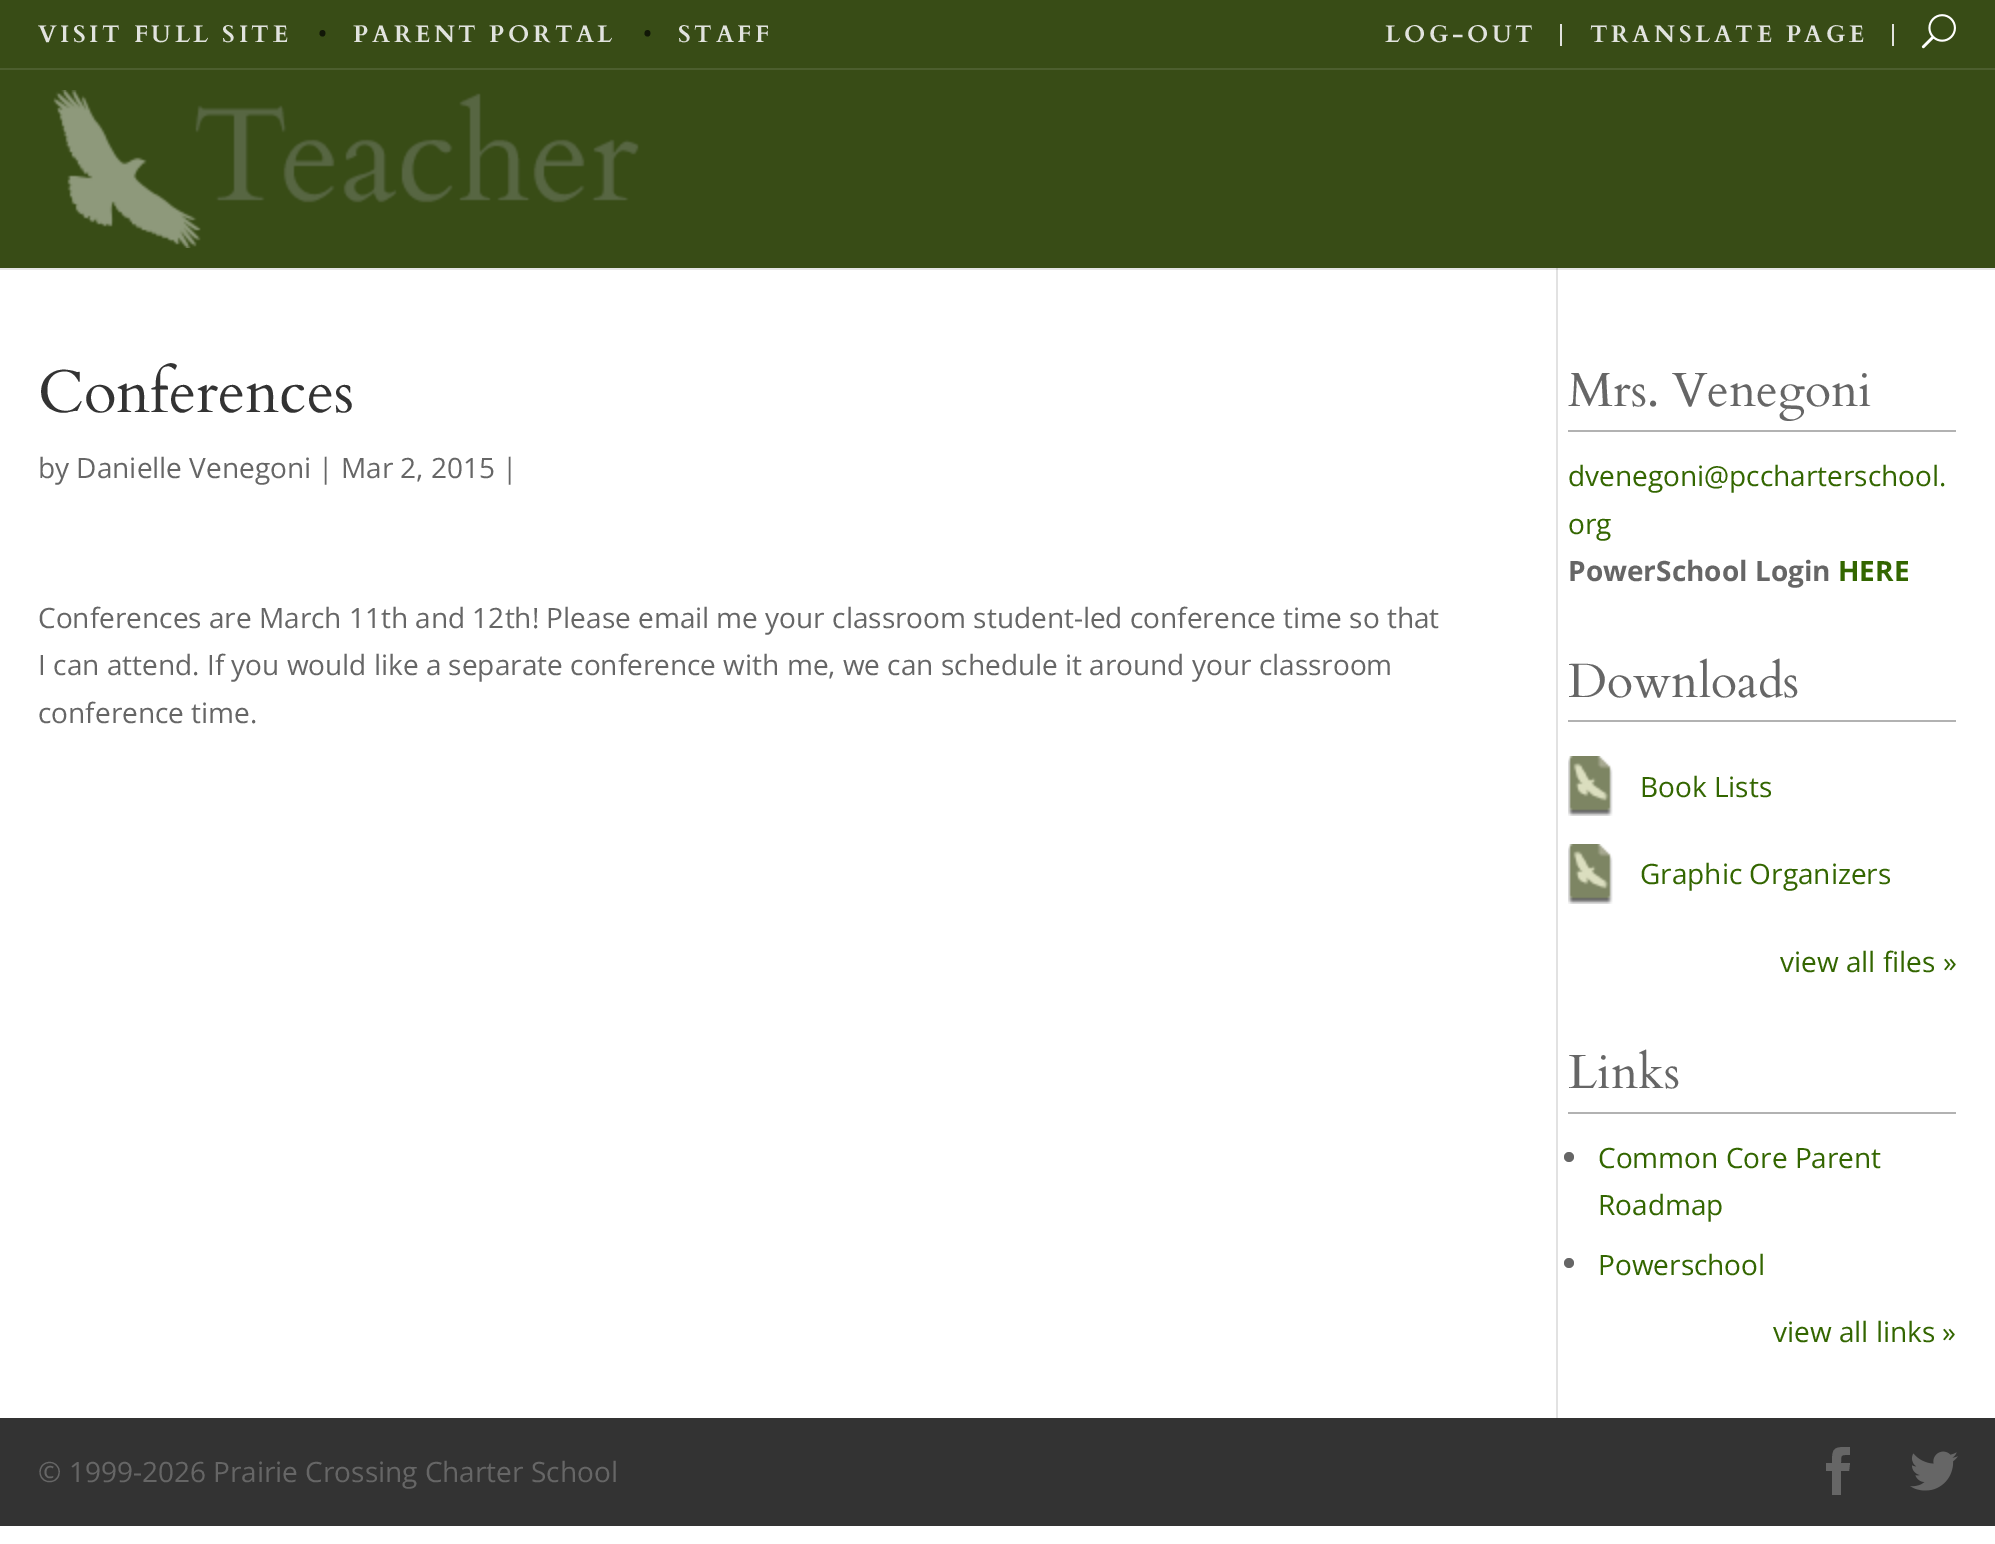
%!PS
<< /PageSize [1995 1544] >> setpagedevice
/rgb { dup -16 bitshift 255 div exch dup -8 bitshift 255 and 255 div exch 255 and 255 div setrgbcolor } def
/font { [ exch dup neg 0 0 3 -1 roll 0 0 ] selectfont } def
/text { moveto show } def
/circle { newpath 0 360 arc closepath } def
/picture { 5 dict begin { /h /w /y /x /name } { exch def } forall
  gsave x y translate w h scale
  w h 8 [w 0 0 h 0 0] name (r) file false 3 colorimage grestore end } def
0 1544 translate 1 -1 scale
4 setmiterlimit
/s1 { /OpenSans-SemiBold 24 font 16#111707 rgb } def
/s2 { /Cardo-Regular 60 font 16#333333 rgb } def
/s3 { /OpenSans-Regular 28 font 16#666666 rgb } def
/s4 { /Cardo-Regular 48 font 16#666666 rgb } def
/s5 { /OpenSans-Regular 28 font 16#336600 rgb } def
/s6 { /OpenSans-Bold 28 font 16#666666 rgb } def
/s7 { /OpenSans-Bold 28 font 16#336600 rgb } def
16#FFFFFF rgb
0 0 1995 1544 rectfill
16#E6E6E6 rgb
0 268 1995 2 rectfill
16#384C16 rgb
0 0 1995 68 rectfill
/Cardo-Bold 24 font
16#E1E3DE rgb
38 42 moveto 3.6 0 (VISIT FULL SITE) ashow
s1
(•) 318 42 text
/Cardo-Bold 24 font
16#E1E3DE rgb
353 42 moveto 3.6 0 (PARENT PORTAL) ashow
s1
(•) 643 42 text
/Cardo-Bold 24 font
16#E1E3DE rgb
678 42 moveto 3.6 0 (STAFF) ashow
1385 42 moveto 3.6 0 (LOG-OUT) ashow
1560 24 2 22 rectfill
1590 42 moveto 3.6 0 (TRANSLATE PAGE) ashow
1892 24 2 22 rectfill
(pic1.raw) 1921 14 35 35 picture
16#4C5E2E rgb
0 68 1995 2 rectfill
16#384C16 rgb
0 70 1995 198 rectfill
(pic2.raw) 53 90 586 158 picture
16#E2E2E2 rgb
1556 270 2 1148 rectfill
16#CBCBCB rgb
1556 268 2 2 rectfill
s2
(Conferences) 38 412 text
s3
(by Danielle Venegoni | Mar 2, 2015 |) 38 478 text
(Conferences are March 11th and 12th! Please email me your classroom student-led conference time so that) 38 628 text
(I can attend. If you would like a separate conference with me, we can schedule it around your classroom) 38 675 text
(conference time.) 38 723 text
16#B2B2B2 rgb
1568 430 388 2 rectfill
s4
(Mrs. Venegoni) 1568 406 text
s5
(dvenegoni@pccharterschool.) 1568 486 text
(org) 1568 534 text
s6
(PowerSchool Login) 1568 581 text
s7
(HERE) 1838 581 text
16#B2B2B2 rgb
1568 720 388 2 rectfill
s4
(Downloads) 1568 697 text
(pic3.raw) 1568 756 45 60 picture
s5
(Book Lists) 1640 797 text
(pic3.raw) 1568 844 45 60 picture
(Graphic Organizers) 1640 884 text
(view all files ») 1780 972 text
16#B2B2B2 rgb
1568 1112 388 2 rectfill
s4
(Links) 1568 1088 text
1569 1157 5 circle fill
s5
(Common Core Parent) 1598 1168 text
(Roadmap) 1598 1215 text
16#666666 rgb
1569 1263 5 circle fill
s5
(Powerschool) 1598 1275 text
(view all links ») 1773 1342 text
16#333333 rgb
0 1418 1995 108 rectfill
s3
(© 1999-2026 Prairie Crossing Charter School) 38 1482 text
1832 1495 moveto 1841 1495 lineto 1841 1471 lineto 1849 1471 lineto 1850 1463 lineto 1841 1463 lineto 1841 1454 1841 1455 1850 1455 curveto 1850 1447 lineto 1834 1447 1832 1447 1832 1463 curveto 1826 1463 lineto 1826 1471 lineto 1832 1471 lineto closepath fill
(pic4.raw) 1910 1451 48 40 picture
showpage
